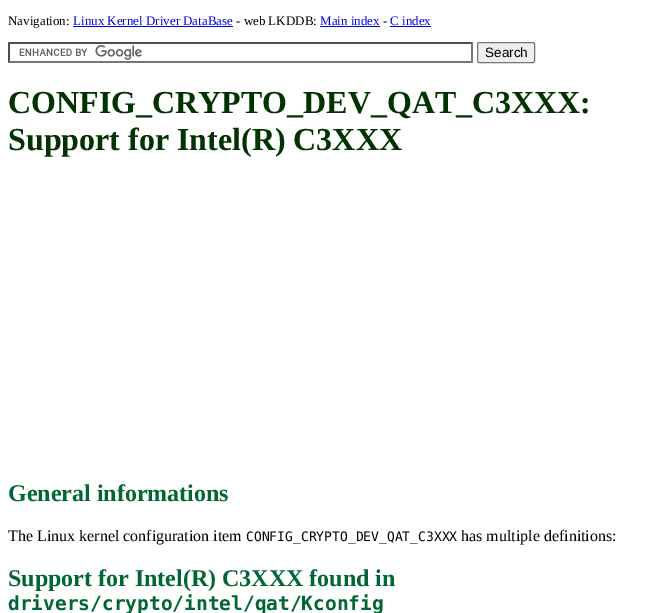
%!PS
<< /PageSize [654 613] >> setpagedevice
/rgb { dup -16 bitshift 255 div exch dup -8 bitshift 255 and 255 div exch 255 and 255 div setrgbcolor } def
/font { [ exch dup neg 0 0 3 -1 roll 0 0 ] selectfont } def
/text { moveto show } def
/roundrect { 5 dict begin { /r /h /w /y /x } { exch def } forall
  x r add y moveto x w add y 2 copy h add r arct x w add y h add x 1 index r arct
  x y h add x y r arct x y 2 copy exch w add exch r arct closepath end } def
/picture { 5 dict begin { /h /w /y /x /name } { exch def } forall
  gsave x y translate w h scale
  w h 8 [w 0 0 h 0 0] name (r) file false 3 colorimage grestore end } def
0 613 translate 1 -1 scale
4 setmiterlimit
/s1 { /LiberationSerif-Regular 13 font 16#000000 rgb } def
/s2 { /LiberationSerif-Regular 13 font 16#0000EE rgb } def
/s3 { /LiberationSans-Regular 13.5 font 16#000000 rgb } def
/s4 { /LiberationSerif-Bold 32 font 16#003300 rgb } def
/s5 { /LiberationSerif-Bold 24 font 16#006633 rgb } def
/s6 { /LiberationSerif-Regular 16 font 16#000000 rgb } def
/s7 { /DejaVuSansMono-Regular 13 font 16#000000 rgb } def
/s8 { /DejaVuSansMono-Bold 19.5 font 16#006633 rgb } def
16#FFFFFF rgb
0 0 654 613 rectfill
s1
(Navigation:) 8 25 text
s2
(Linux Kernel Driver DataBase) 73 25 text
73 26 160 1 rectfill
s1
(- web LKDDB:) 236 25 text
s2
(Main index) 320 25 text
320 26 60 1 rectfill
s1
(-) 383 25 text
s2
(C index) 390 25 text
390 26 41 1 rectfill
(pic1.raw) 19 45 123 15 picture
16#4F4F4F rgb
8 42 moveto 473 42 lineto 471 44 lineto 10 44 lineto closepath fill
16#767676 rgb
473 42 moveto 473 63 lineto 471 61 lineto 471 44 lineto closepath fill
473 63 moveto 8 63 lineto 10 61 lineto 471 61 lineto closepath fill
16#4F4F4F rgb
8 63 moveto 8 42 lineto 10 44 lineto 10 61 lineto closepath fill
16#EFEFEF rgb
477.5 42.5 57 20 1.5 roundrect gsave fill grestore
16#767676 rgb
stroke
s3
(Search) 485 57 text
s4
(CONFIG_CRYPTO_DEV_QAT_C3XXX:) 8 113 text
(Support for Intel\(R\) C3XXX) 8 150 text
s5
(General informations) 8 501 text
s6
(The Linux kernel configuration item) 8 541 text
s7
(CONFIG_CRYPTO_DEV_QAT_C3XXX) 246 541 text
s6
(has multiple definitions:) 461 541 text
s5
(Support for Intel\(R\) C3XXX found in) 8 586 text
s8
(drivers/crypto/intel/qat/Kconfig) 8 610 text
showpage
